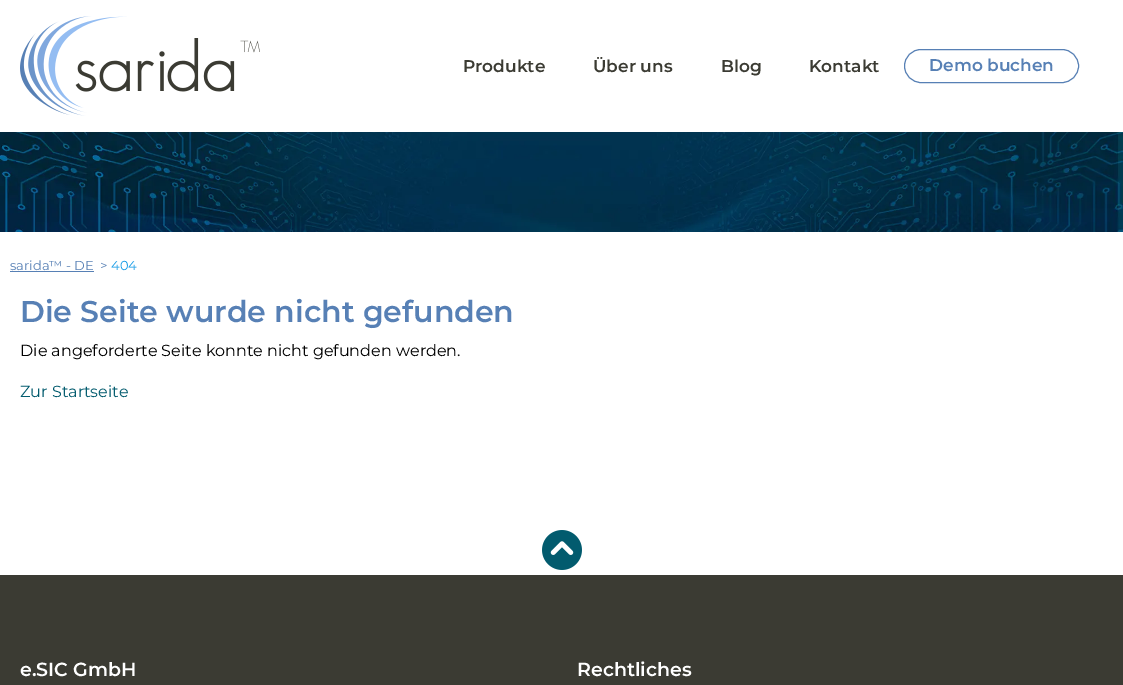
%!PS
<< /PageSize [1123 685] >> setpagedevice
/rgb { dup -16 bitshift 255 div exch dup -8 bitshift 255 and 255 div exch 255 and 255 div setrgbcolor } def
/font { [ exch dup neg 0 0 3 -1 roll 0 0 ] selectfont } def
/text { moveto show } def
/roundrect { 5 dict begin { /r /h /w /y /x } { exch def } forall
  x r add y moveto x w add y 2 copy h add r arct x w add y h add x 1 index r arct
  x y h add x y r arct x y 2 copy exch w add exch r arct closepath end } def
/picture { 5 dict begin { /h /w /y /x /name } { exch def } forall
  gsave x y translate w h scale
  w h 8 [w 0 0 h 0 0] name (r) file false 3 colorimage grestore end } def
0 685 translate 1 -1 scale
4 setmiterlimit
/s1 { /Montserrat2-Thin 17 font 16#3B3B33 rgb } def
/s2 { /Montserrat2-Thin 17 font 16#5780B5 rgb } def
/s3 { /Montserrat-Thin 13 font 16#5780B5 rgb } def
/s4 { /Montserrat-Thin 13 font 16#1099E6 rgb } def
/s5 { /Montserrat2-Thin 30 font 16#5780B5 rgb } def
/s6 { /Montserrat-Thin 16 font 16#000000 rgb } def
/s7 { /Montserrat-Thin 16 font 16#025B6E rgb } def
/s8 { /Montserrat2-Thin 19 font 16#FFFFFF rgb } def
16#FFFFFF rgb
0 0 1123 685 rectfill
(pic1.raw) 20 16 240 100 picture
s1
(Produkte) 463 72 text
(Über uns) 593 72 text
(Blog) 721 72 text
(Kontakt) 809 72 text
16#5780B5 rgb
904.5 49.5 174 33 16.5 roundrect stroke
(Demo buchen) 929 71 text
(pic2.raw) 0 132 1123 100 picture
s3
(sarida™ - DE) 10 270 text
10 271 84 1 rectfill
(>) 100 270 text
s4
(404) 111 270 text
s5
(Die Seite wurde nicht gefunden) 20 322 text
s6
(Die angeforderte Seite konnte nicht gefunden werden.) 20 356 text
s7
(Zur Startseite) 20 397 text
16#3B3B33 rgb
0 575 1123 110 rectfill
(pic3.raw) 542 530 40 40 picture
s8
(e.SIC GmbH) 20 676 text
(Rechtliches) 577 676 text
showpage
